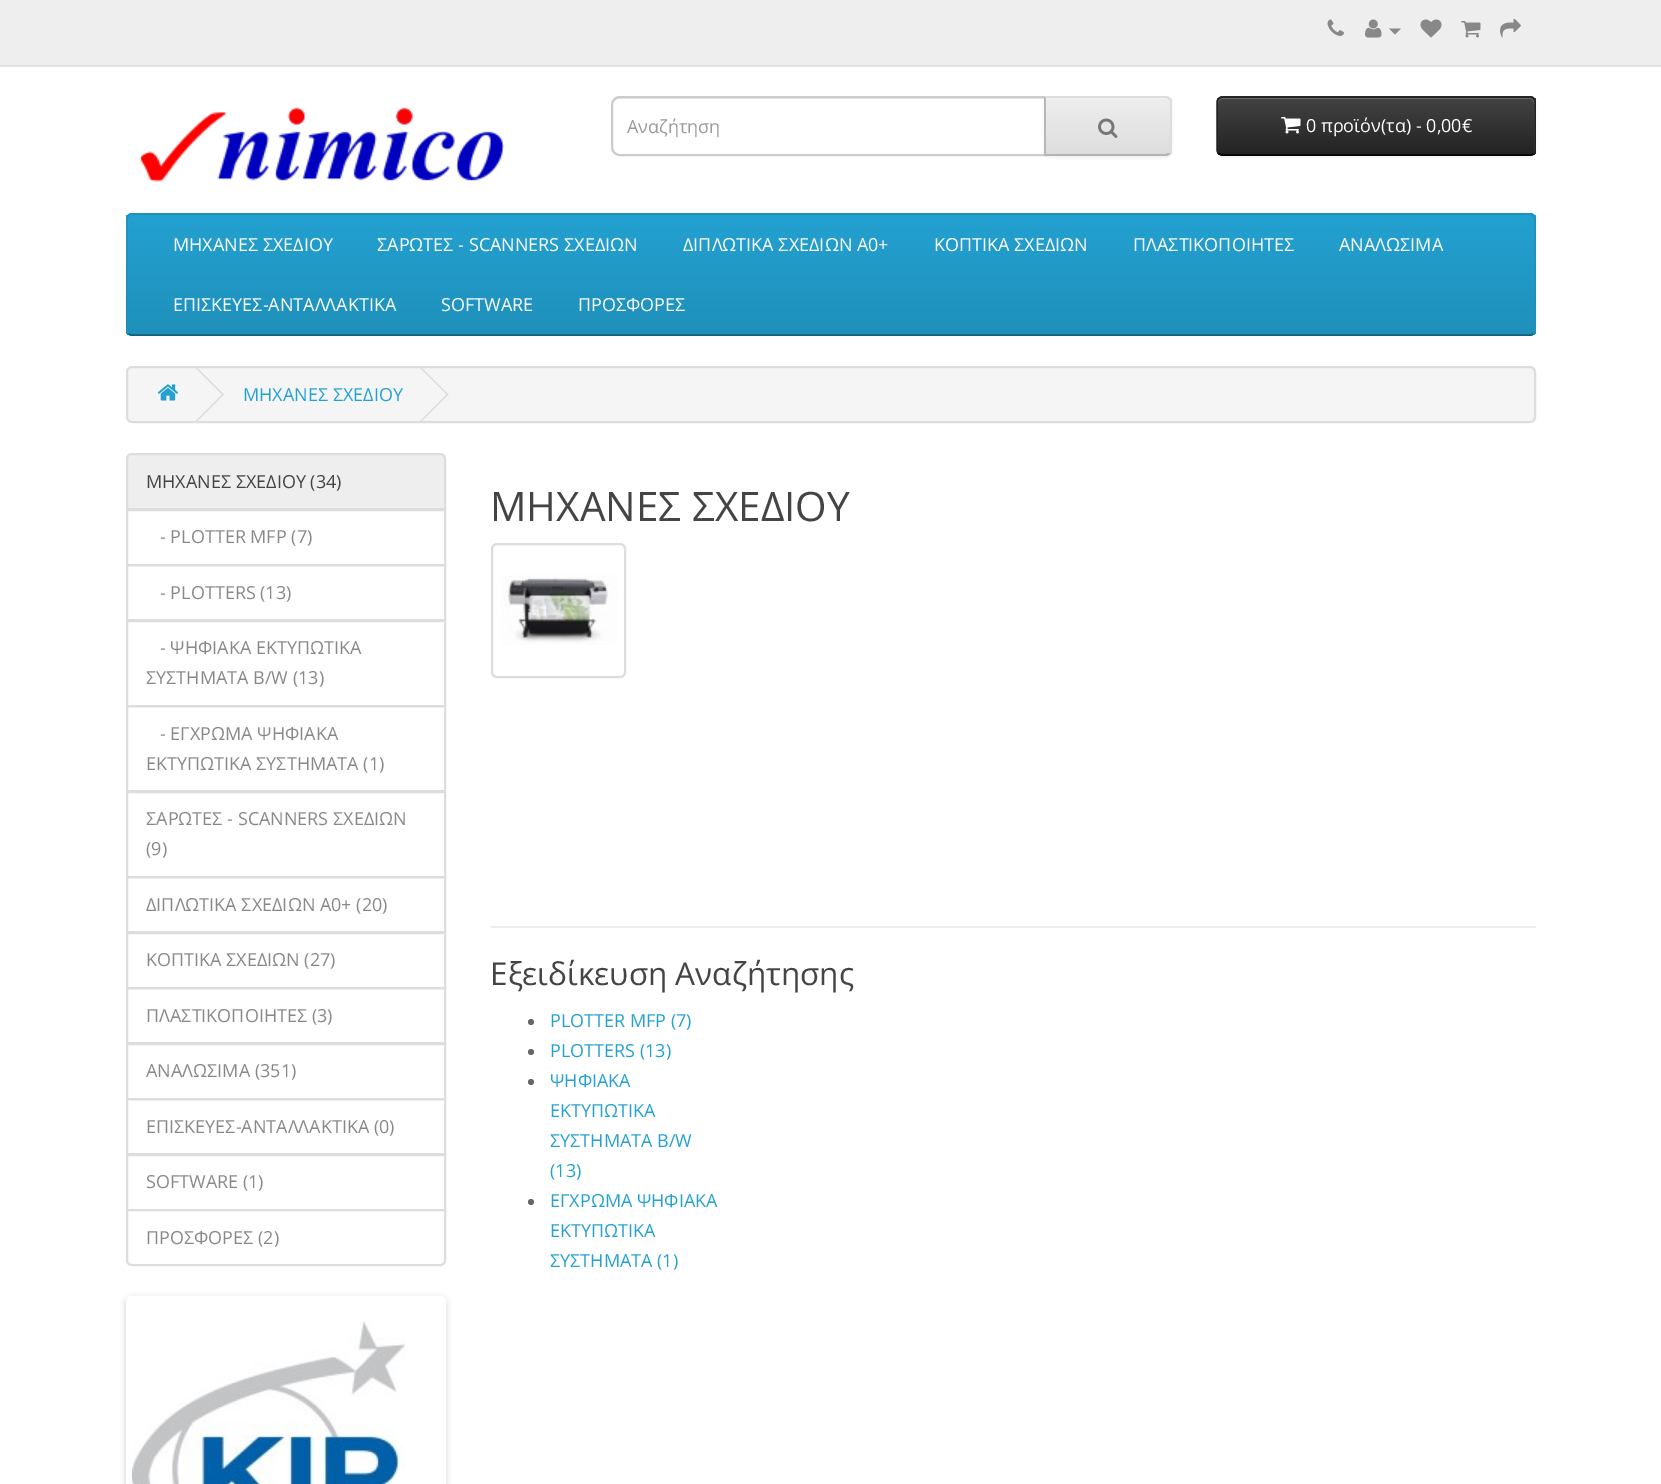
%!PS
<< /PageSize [1661 1484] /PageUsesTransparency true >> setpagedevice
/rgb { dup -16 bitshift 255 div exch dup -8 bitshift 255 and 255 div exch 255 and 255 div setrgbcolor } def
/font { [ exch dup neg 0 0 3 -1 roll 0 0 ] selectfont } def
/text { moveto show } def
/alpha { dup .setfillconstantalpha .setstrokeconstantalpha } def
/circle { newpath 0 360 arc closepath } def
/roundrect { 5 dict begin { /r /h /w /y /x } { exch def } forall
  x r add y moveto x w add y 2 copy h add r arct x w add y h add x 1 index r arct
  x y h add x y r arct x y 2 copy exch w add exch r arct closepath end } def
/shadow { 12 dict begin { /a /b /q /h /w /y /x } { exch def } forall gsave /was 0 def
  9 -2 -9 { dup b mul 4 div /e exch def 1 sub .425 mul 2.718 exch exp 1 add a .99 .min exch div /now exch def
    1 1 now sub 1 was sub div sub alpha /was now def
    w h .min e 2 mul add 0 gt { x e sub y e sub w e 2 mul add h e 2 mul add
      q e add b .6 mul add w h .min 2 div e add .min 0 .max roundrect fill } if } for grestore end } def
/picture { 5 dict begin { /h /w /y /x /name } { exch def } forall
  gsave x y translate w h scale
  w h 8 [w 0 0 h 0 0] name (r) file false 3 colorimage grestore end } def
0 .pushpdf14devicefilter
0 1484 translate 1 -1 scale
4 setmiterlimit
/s1 { /OpenSans-Regular 18 font 16#999999 rgb } def
/s2 { /OpenSans-Regular 18 font 16#FFFFFF rgb } def
/s3 { /OpenSans-Regular 18 font 16#23A1D1 rgb } def
/s4 { /OpenSans-Regular 18 font 16#444444 rgb } def
/s5 { /OpenSans-Regular 18 font 16#888888 rgb } def
/s6 { /OpenSans-Regular 40.5 font 16#444444 rgb } def
/s7 { /OpenSans-Regular 31.5 font 16#444444 rgb } def
16#FFFFFF rgb
0 0 1661 1484 rectfill
16#EEEEEE rgb
0 0 1661 65 rectfill
16#E2E2E2 rgb
0 65 1661 2 rectfill
(pic1.raw) 1327 19 17 17 picture
(pic2.raw) 1365 19 17 19 picture
16#888888 rgb
1389 28.5 moveto 1401 28.5 lineto 1395 34.5 lineto closepath fill
(pic3.raw) 1420 19 22 19 picture
(pic4.raw) 1461 21 20 17 picture
(pic5.raw) 1500 18 21 20 picture
(pic6.raw) 139 107 366 75 picture
16#ECECEC rgb
620 99 moveto 1044 99 lineto 1044 98 lineto 620 98 lineto 616 98 612 102 612 106 curveto 612 102 615 99 620 99 curveto closepath fill
16#CCCCCC rgb
2 setlinewidth
620 97 moveto 1045 97 lineto 1045 155 lineto 620 155 lineto 615.5 155 612 151.5 612 147 curveto 612 105 lineto 612 100.5 615.5 97 620 97 curveto closepath stroke
s1
(Αναζήτηση) 627 133 text
16#000000 rgb
1044 98 128 60 6 1.5 0.05 shadow
16#E7E7E7 rgb
1044 96 moveto 1166 96 lineto 1169.5 96 1172 98.5 1172 102 curveto 1172 150 lineto 1172 153.5 1169.5 156 1166 156 curveto 1044 156 lineto closepath fill
gsave
1044 96 moveto 1166 96 lineto 1169.5 96 1172 98.5 1172 102 curveto 1172 150 lineto 1172 153.5 1169.5 156 1166 156 curveto 1044 156 lineto closepath clip newpath
gsave 1045 98 moveto 1172 98 lineto 1172 155 lineto 1045 155 lineto closepath clip newpath
<< /ShadingType 2 /ColorSpace /DeviceRGB /Coords [1108 98 1108 155] /Extend [true true] /Function << /FunctionType 2 /Domain [0 1] /C0 [0.933 0.933 0.933] /C1 [0.867 0.867 0.867] /N 1 >> >> shfill grestore
grestore
16#F1F1F1 rgb
1046 99 moveto 1166 99 lineto 1168 99 1170 101 1170 104 curveto 1170 103 lineto 1170 100 1168 98 1165 98 curveto 1046 98 lineto closepath fill
16#DDDDDD rgb
1044 96 moveto 1046 98 lineto 1166 98 lineto 1168 99 lineto 1170 98 lineto 1169 97 1167 96 1166 96 curveto closepath fill
1172 152 moveto 1170 154 lineto 1168 153 lineto 1169 152 1170 151 1170 150 curveto 1170 102 lineto 1170 101 1169 100 1168 99 curveto 1170 98 lineto 1172 100 lineto closepath fill
16#B3B3B3 rgb
1166 156 moveto 1167 156 1169 155 1170 154 curveto 1168 153 lineto 1166 154 lineto 1046 154 lineto 1044 156 lineto closepath fill
16#B7B7B7 rgb
1044 96 moveto 1044 156 lineto 1046 154 lineto 1046 98 lineto closepath fill
(pic7.raw) 1098 118 20 20 picture
16#000000 rgb
1217 98 319 60 6 1.5 0.05 shadow
16#363636 rgb
1217 96 319 60 6 roundrect fill
gsave
1217 96 319 60 6 roundrect clip newpath
gsave 1217 98 moveto 1536 98 lineto 1536 155 lineto 1217 155 lineto closepath clip newpath
<< /ShadingType 2 /ColorSpace /DeviceRGB /Coords [1376 97 1376 155] /Extend [true true] /Function << /FunctionType 2 /Domain [0 1] /C0 [0.267 0.267 0.267] /C1 [0.133 0.133 0.133] /N 1 >> >> shfill grestore
grestore
0.2 alpha
16#FFFFFF rgb
1222 99 moveto 1530 99 lineto 1532 99 1534 101 1534 104 curveto 1534 153 lineto 1535 152 1535 151 1535 150 curveto 1535 103 lineto 1535 100 1533 98 1530 98 curveto 1223 98 lineto 1220 98 1218 100 1218 103 curveto 1218 104 lineto 1218 101 1220 99 1222 99 curveto closepath fill
1 alpha
16#000000 rgb
1.5 setlinewidth
1533.5 153.5 moveto 1532.5 154.5 1531.5 155 1530 155 curveto 1222.5 155 lineto 1221 155 1220 154.5 1219 153.5 curveto stroke
16#222222 rgb
1219 153.5 moveto 1218 152.5 1217 151.5 1217 150 curveto 1217 102 lineto 1217 100.5 1218 99.5 1219 98.5 curveto 1220 97.5 1221 97 1222.5 97 curveto 1530 97 lineto 1531.5 97 1532.5 97.5 1533.5 98.5 curveto 1534.5 99.5 1535 100.5 1535 102 curveto 1535 150 lineto 1535 151.5 1534.5 152.5 1533.5 153.5 curveto stroke
(pic8.raw) 1281 117 20 17 picture
s2
(0 προϊόν\(τα\) - 0,00€) 1306 132 text
16#229AC8 rgb
126 213 1410 123 6 roundrect fill
gsave
126 213 1410 123 6 roundrect clip newpath
gsave 126 215 moveto 1536 215 lineto 1536 335 lineto 126 335 lineto closepath clip newpath
<< /ShadingType 2 /ColorSpace /DeviceRGB /Coords [831 214 831 335] /Extend [true true] /Function << /FunctionType 2 /Domain [0 1] /C0 [0.137 0.631 0.82] /C1 [0.122 0.565 0.733] /N 1 >> >> shfill grestore
grestore
16#145E7A rgb
1533.5 333.5 moveto 1532.5 334.5 1531.5 335 1530 335 curveto 132 335 lineto 130.5 335 129.5 334.5 128.5 333.5 curveto stroke
16#1F90BB rgb
128.5 333.5 moveto 127.5 332.5 127 331.5 127 330 curveto 127 219 lineto 127 217.5 127.5 216.5 128.5 215.5 curveto 129.5 214.5 130.5 214 132 214 curveto 1530 214 lineto 1531.5 214 1532.5 214.5 1533.5 215.5 curveto 1534.5 216.5 1535 217.5 1535 219 curveto 1535 330 lineto 1535 331.5 1534.5 332.5 1533.5 333.5 curveto stroke
s2
(ΜΗΧΑΝΕΣ ΣΧΕΔΙΟΥ) 173 251 text
(ΣΑΡΩΤΕΣ - SCANNERS ΣΧΕΔΙΩΝ) 377 251 text
(ΔΙΠΛΩΤΙΚΑ ΣΧΕΔΙΩΝ A0+) 683 251 text
(ΚΟΠΤΙΚΑ ΣΧΕΔΙΩΝ) 934 251 text
(ΠΛΑΣΤΙΚΟΠΟΙΗΤΕΣ) 1133 251 text
(ΑΝΑΛΩΣΙΜΑ) 1339 251 text
(ΕΠΙΣΚΕΥΕΣ-ΑΝΤΑΛΛΑΚΤΙΚΑ) 173 311 text
(SOFTWARE) 441 311 text
(ΠΡΟΣΦΟΡΕΣ) 578 311 text
16#F5F5F5 rgb
127 367 1408 55 5 roundrect gsave fill grestore
16#DDDDDD rgb
2 setlinewidth
stroke
(pic9.raw) 157 384 21 17 picture
195.5 368 moveto 196.5 367 lineto 224 394.5 lineto 223 395.5 lineto closepath fill
195.5 421 moveto 223 393.5 lineto 224 394.5 lineto 196.5 422 lineto closepath fill
s3
(ΜΗΧΑΝΕΣ ΣΧΕΔΙΟΥ) 243 401 text
16#DDDDDD rgb
420 368 moveto 421 367 lineto 448.5 394.5 lineto 447.5 395.5 lineto closepath fill
420 421 moveto 447.5 393.5 lineto 448.5 394.5 lineto 421 422 lineto closepath fill
127 510 318 55 rectstroke
16#EEEEEE rgb
132 454 moveto 440 454 lineto 443 454 445 456 445 459 curveto 445 509 lineto 127 509 lineto 127 459 lineto 127 456 129 454 132 454 curveto closepath gsave fill grestore
16#DDDDDD rgb
stroke
s4
(ΜΗΧΑΝΕΣ ΣΧΕΔΙΟΥ \(34\)) 146 488 text
s5
(- PLOTTER MFP \(7\)) 160 543 text
16#DDDDDD rgb
127 565 318 55 rectstroke
s5
(- PLOTTERS \(13\)) 160 599 text
16#DDDDDD rgb
127 621 318 85 rectstroke
s5
(- ΨΗΦΙΑΚΑ ΕΚΤΥΠΩΤΙΚΑ) 160 654 text
(ΣΥΣΤΗΜΑΤΑ B/W \(13\)) 146 684 text
16#DDDDDD rgb
127 706 318 85 rectstroke
s5
(- ΕΓΧΡΩΜΑ ΨΗΦΙΑΚΑ) 160 740 text
(ΕΚΤΥΠΩΤΙΚΑ ΣΥΣΤΗΜΑΤΑ \(1\)) 146 770 text
16#DDDDDD rgb
127 792 318 85 rectstroke
s5
(ΣΑΡΩΤΕΣ - SCANNERS ΣΧΕΔΙΩΝ) 146 825 text
(\(9\)) 146 855 text
16#DDDDDD rgb
127 877 318 55 rectstroke
s5
(ΔΙΠΛΩΤΙΚΑ ΣΧΕΔΙΩΝ A0+ \(20\)) 146 911 text
16#DDDDDD rgb
127 933 318 55 rectstroke
s5
(ΚΟΠΤΙΚΑ ΣΧΕΔΙΩΝ \(27\)) 146 966 text
16#DDDDDD rgb
127 988 318 55 rectstroke
s5
(ΠΛΑΣΤΙΚΟΠΟΙΗΤΕΣ \(3\)) 146 1022 text
16#DDDDDD rgb
127 1044 318 55 rectstroke
s5
(ΑΝΑΛΩΣΙΜΑ \(351\)) 146 1077 text
16#DDDDDD rgb
127 1099 318 55 rectstroke
s5
(ΕΠΙΣΚΕΥΕΣ-ΑΝΤΑΛΛΑΚΤΙΚΑ \(0\)) 146 1133 text
16#DDDDDD rgb
127 1155 318 55 rectstroke
s5
(SOFTWARE \(1\)) 146 1188 text
16#FFFFFF rgb
127 1210 moveto 445 1210 lineto 445 1260 lineto 445 1263 443 1265 440 1265 curveto 132 1265 lineto 129 1265 127 1263 127 1260 curveto closepath gsave fill grestore
16#DDDDDD rgb
stroke
s5
(ΠΡΟΣΦΟΡΕΣ \(2\)) 146 1244 text
gsave
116 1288 moveto 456 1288 lineto 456 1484 lineto 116 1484 lineto closepath 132 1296 moveto 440 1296 lineto 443.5 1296 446 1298.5 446 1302 curveto 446 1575 lineto 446 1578.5 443.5 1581 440 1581 curveto 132 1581 lineto 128.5 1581 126 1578.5 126 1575 curveto 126 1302 lineto 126 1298.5 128.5 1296 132 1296 curveto closepath eoclip newpath
16#000000 rgb
126 1298 320 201 6 3 0.2 shadow
grestore
16#FFFFFF rgb
6 setlinewidth
129 1299 314 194 3 roundrect stroke
(pic10.raw) 132 1320 273 164 picture
s6
(ΜΗΧΑΝΕΣ ΣΧΕΔΙΟΥ) 490 521 text
16#DDDDDD rgb
2 setlinewidth
492 544 133 133 5 roundrect stroke
(pic11.raw) 501 574 117 71 picture
16#EEEEEE rgb
491 926 1045 2 rectfill
s7
(Εξειδίκευση Αναζήτησης) 490 985 text
16#666666 rgb
531 1022 3 circle fill
s3
(PLOTTER MFP \(7\)) 550 1027 text
16#666666 rgb
531 1052 3 circle fill
s3
(PLOTTERS \(13\)) 550 1057 text
16#666666 rgb
531 1082 3 circle fill
s3
(ΨΗΦΙΑΚΑ) 550 1087 text
(ΕΚΤΥΠΩΤΙΚΑ) 550 1117 text
(ΣΥΣΤΗΜΑΤΑ B/W) 550 1147 text
(\(13\)) 550 1177 text
16#666666 rgb
531 1202 3 circle fill
s3
(ΕΓΧΡΩΜΑ ΨΗΦΙΑΚΑ) 550 1207 text
(ΕΚΤΥΠΩΤΙΚΑ) 550 1237 text
(ΣΥΣΤΗΜΑΤΑ \(1\)) 550 1267 text
.poppdf14devicefilter showpage
